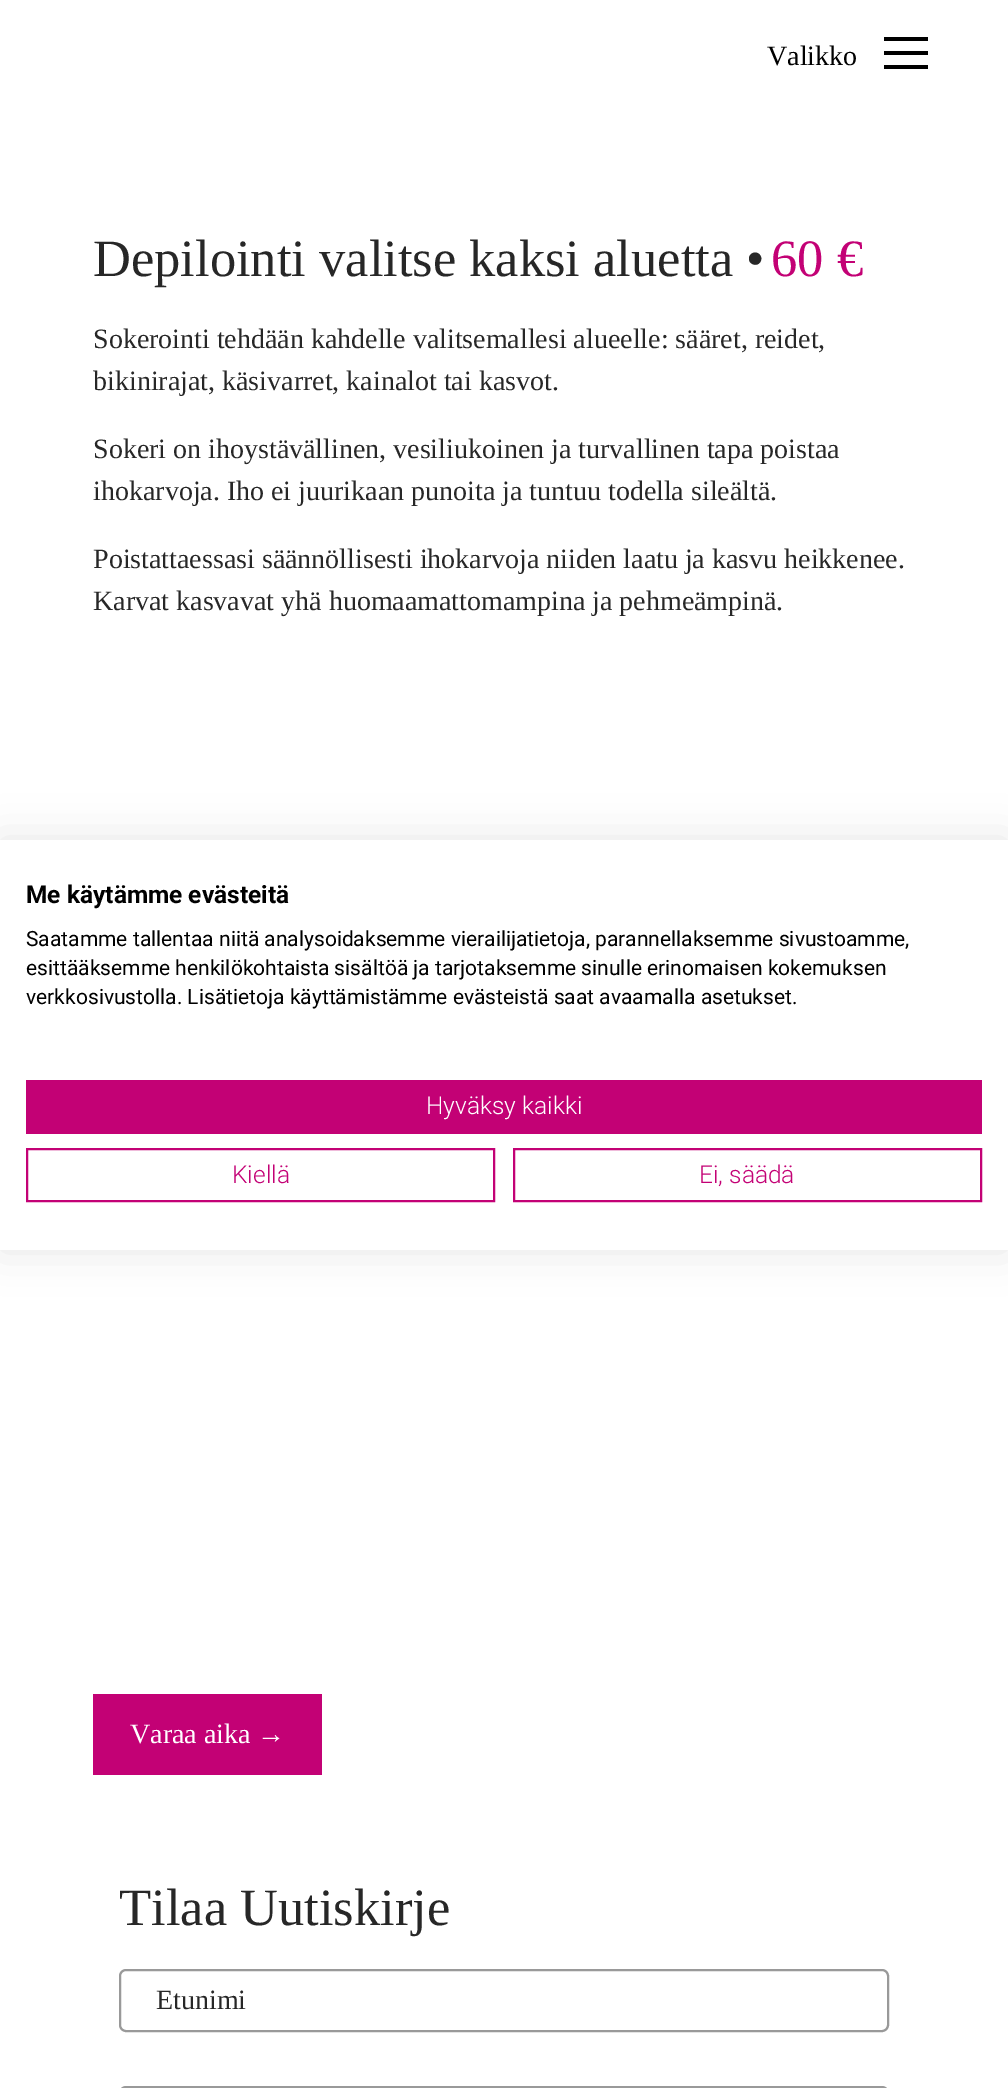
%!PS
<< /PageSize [1008 2088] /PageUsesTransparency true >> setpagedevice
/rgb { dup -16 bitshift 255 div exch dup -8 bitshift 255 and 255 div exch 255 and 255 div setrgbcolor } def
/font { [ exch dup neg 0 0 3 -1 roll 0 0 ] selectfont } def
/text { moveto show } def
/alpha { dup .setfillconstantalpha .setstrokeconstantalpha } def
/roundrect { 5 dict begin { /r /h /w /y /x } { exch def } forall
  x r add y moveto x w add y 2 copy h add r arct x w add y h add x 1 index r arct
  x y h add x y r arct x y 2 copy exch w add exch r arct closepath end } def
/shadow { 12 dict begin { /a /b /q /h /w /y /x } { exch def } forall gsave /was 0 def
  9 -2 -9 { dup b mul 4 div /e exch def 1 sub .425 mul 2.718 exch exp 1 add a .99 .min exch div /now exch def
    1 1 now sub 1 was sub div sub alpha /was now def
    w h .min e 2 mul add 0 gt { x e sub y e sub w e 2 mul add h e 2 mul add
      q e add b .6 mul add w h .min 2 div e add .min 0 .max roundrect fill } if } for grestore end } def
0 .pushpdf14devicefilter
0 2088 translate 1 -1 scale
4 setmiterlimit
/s1 { /LiberationSerif-Regular 28 font 16#000000 rgb } def
/s2 { /LiberationSerif-Regular 52.5 font 16#272727 rgb } def
/s3 { /LiberationSerif-Regular 52.5 font 16#C30175 rgb } def
/s4 { /LiberationSerif-Regular 28 font 16#272727 rgb } def
/s5 { /LiberationSerif-Regular 28 font 16#FFFFFF rgb } def
/s6 { /Roboto-Bold 24.5 font 16#000000 rgb } def
/s7 { /Roboto-Regular 21 font 16#000000 rgb } def
/s8 { /Roboto-Light 24.5 font 16#FFFFFF rgb } def
/s9 { /Roboto-Light 24.5 font 16#C30175 rgb } def
16#FFFFFF rgb
0 0 1008 2088 rectfill
16#000000 rgb
884 37 44 4 rectfill
s1
(Valikko) 767 65 text
884 51 44 4 rectfill
884 65 44 4 rectfill
s2
(Depilointi valitse kaksi aluetta •) 93 276 text
s3
(60 €) 771 276 text
s4
(Sokerointi tehdään kahdelle valitsemallesi alueelle: sääret, reidet,) 93 348 text
(bikinirajat, käsivarret, kainalot tai kasvot.) 93 390 text
(Sokeri on ihoystävällinen, vesiliukoinen ja turvallinen tapa poistaa) 93 458 text
(ihokarvoja. Iho ei juurikaan punoita ja tuntuu todella sileältä.) 93 500 text
(Poistattaessasi säännöllisesti ihokarvoja niiden laatu ja kasvu heikkenee.) 93 568 text
(Karvat kasvavat yhä huomaamattomampina ja pehmeämpinä.) 93 610 text
16#C30175 rgb
93 1694 229 81 rectfill
s5
(Varaa aika →) 130 1743 text
s2
(Tilaa Uutiskirje) 119 1925 text
16#999999 rgb
2 setlinewidth
120 1970 768 61 6 roundrect stroke
s4
(Etunimi) 156 2009 text
16#999999 rgb
120 2087 768 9 6 roundrect stroke
16#000000 rgb
0 840 1008 410 0 21 0.1 shadow
16#FFFFFF rgb
0 840 1008 410 rectfill
s6
(Me käytämme evästeitä) 26 903 text
s7
(Saatamme tallentaa niitä analysoidaksemme vierailijatietoja, parannellaksemme sivustoamme,) 26 946 text
(esittääksemme henkilökohtaista sisältöä ja tarjotaksemme sinulle erinomaisen kokemuksen) 26 975 text
(verkkosivustolla. Lisätietoja käyttämistämme evästeistä saat avaamalla asetukset.) 26 1004 text
16#C30175 rgb
26 1080 956 54 rectfill
s8
(Hyväksy kaikki) 426 1114 text
16#C30175 rgb
27 1149 467 52 rectstroke
(Kiellä) 232 1183 text
514 1149 467 52 rectstroke
(Ei, säädä) 699 1183 text
.poppdf14devicefilter showpage
